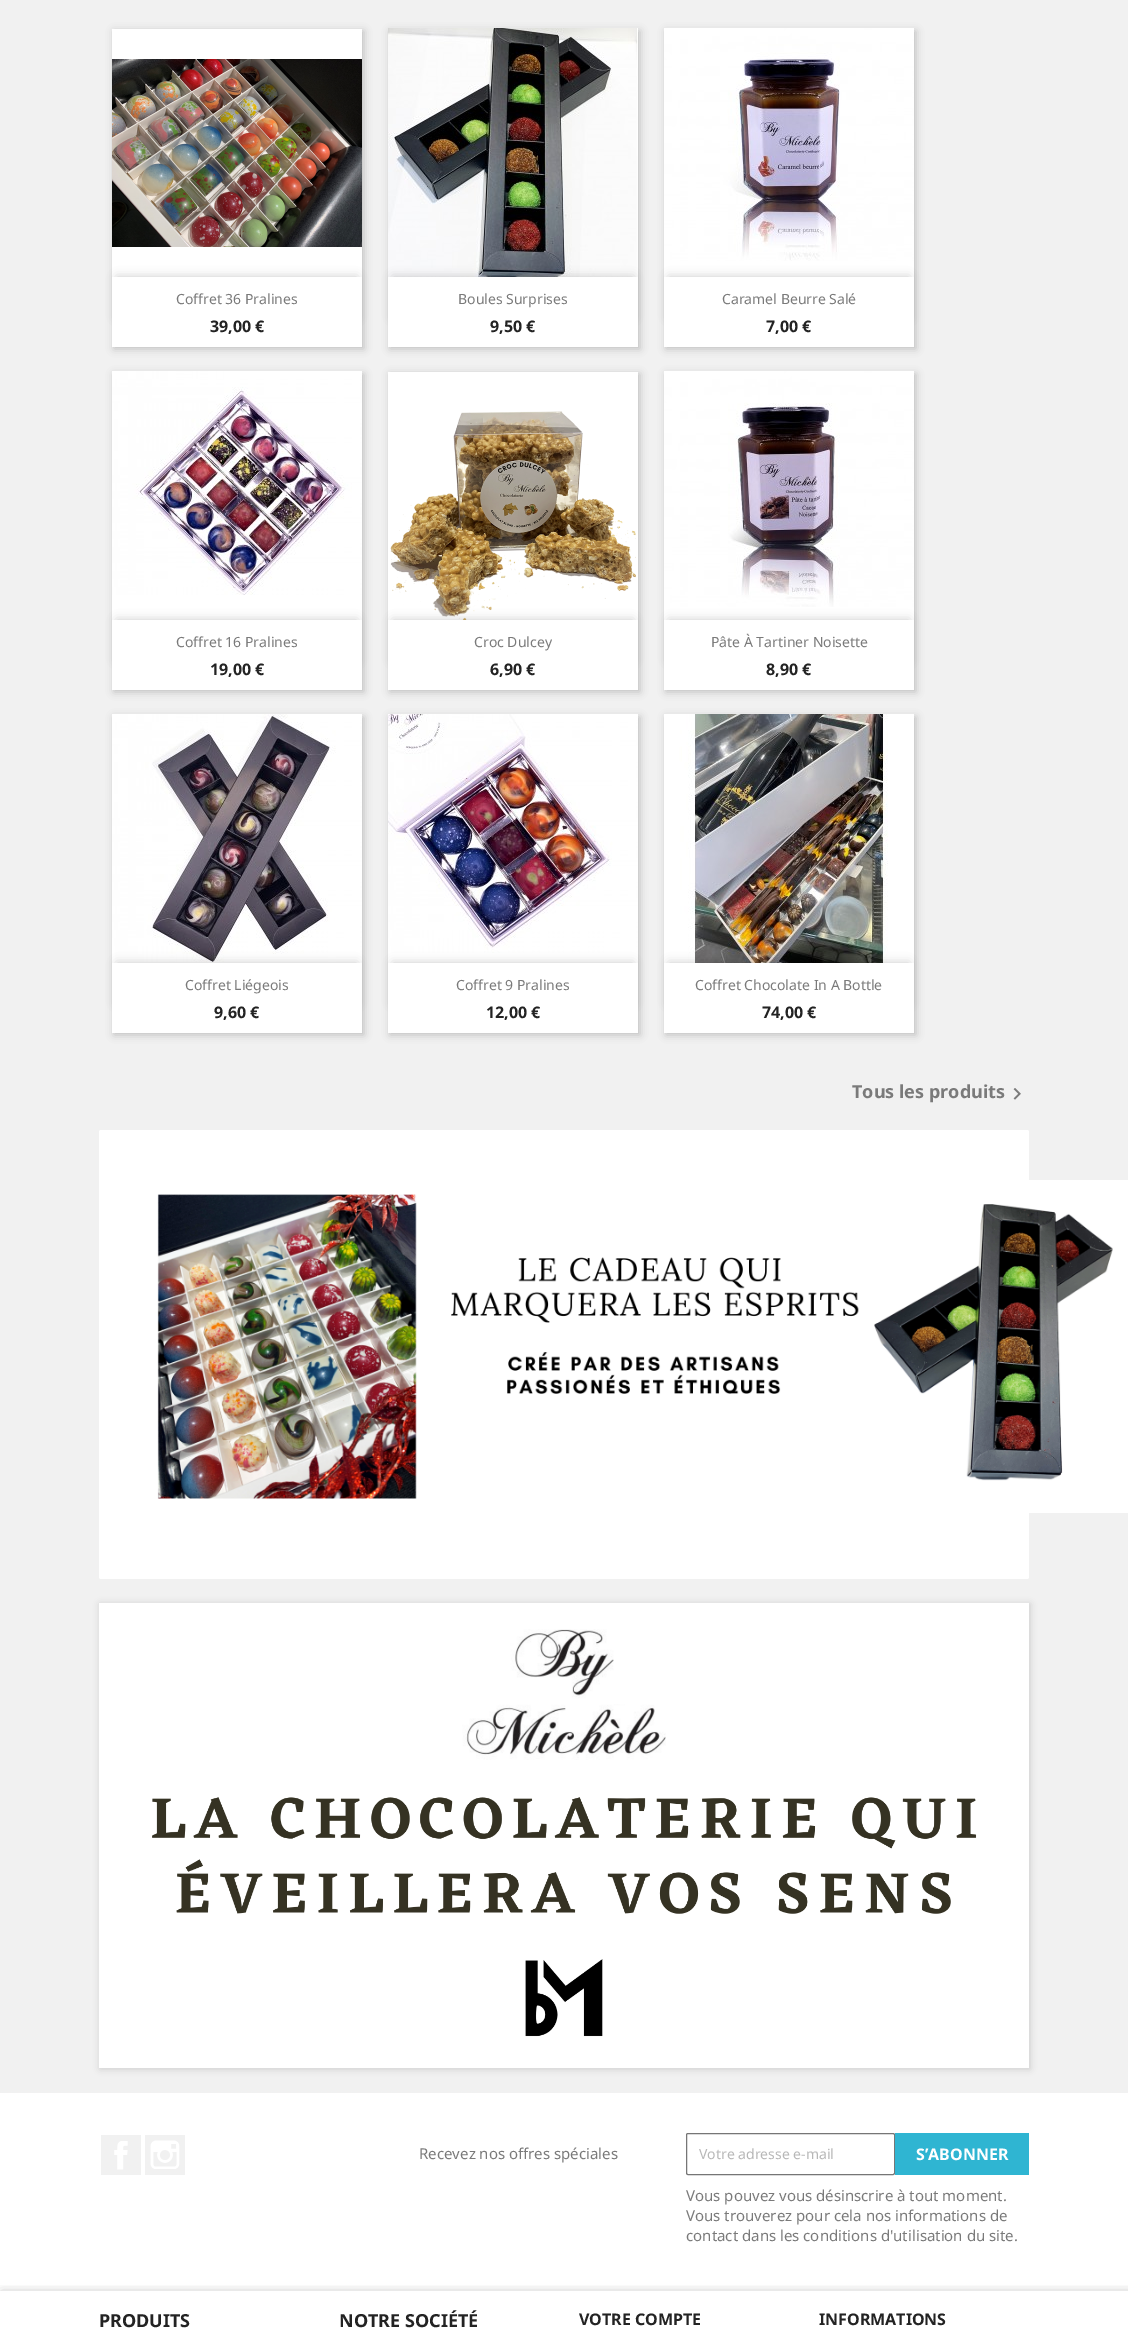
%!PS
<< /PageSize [1128 2331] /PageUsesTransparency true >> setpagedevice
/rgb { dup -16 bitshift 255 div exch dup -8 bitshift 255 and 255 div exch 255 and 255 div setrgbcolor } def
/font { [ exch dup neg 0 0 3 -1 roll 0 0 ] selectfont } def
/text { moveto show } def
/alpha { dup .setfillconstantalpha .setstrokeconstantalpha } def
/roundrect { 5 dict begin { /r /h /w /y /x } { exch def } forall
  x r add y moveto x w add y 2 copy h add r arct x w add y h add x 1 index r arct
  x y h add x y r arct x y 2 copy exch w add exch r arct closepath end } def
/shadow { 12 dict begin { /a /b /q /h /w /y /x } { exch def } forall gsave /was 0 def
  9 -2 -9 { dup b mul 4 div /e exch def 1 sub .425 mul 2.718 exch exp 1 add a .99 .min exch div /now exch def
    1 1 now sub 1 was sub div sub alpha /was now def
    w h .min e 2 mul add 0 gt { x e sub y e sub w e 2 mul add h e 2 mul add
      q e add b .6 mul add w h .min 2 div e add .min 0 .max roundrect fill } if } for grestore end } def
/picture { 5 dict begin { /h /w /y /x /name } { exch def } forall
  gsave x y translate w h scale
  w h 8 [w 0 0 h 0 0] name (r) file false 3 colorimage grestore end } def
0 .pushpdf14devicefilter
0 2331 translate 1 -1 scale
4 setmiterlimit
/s1 { /NotoSans-Regular 14 font 16#7A7A7A rgb } def
/s2 { /NotoSans-Bold 16 font 16#232323 rgb } def
/s3 { /NotoSans-Bold 18 font 16#7A7A7A rgb } def
/s4 { /NotoSans-Regular 15 font 16#7A7A7A rgb } def
/s5 { /NotoSans-Regular 14 font 16#B7B7B7 rgb } def
/s6 { /NotoSans-Bold 16 font 16#FFFFFF rgb } def
/s7 { /NotoSans-Bold 18 font 16#232323 rgb } def
16#FFFFFF rgb
0 0 1128 2331 rectfill
16#F1F1F1 rgb
0 0 1128 2093 rectfill
16#000000 rgb
114 31 250 318 0 4 0.2 shadow
16#FFFFFF rgb
112 29 250 248 rectfill
(pic1.raw) 112 59 250 188 picture
16#000000 rgb
117 277 240 40 0 5 0.2 shadow
16#FFFFFF rgb
112 277 250 70 rectfill
s1
(Coffret 36 Pralines) 176 304 text
s2
(39,00 €) 210 332 text
16#000000 rgb
390 31 250 318 0 4 0.2 shadow
(pic2.raw) 388 28 250 249 picture
393 277 240 40 0 5 0.2 shadow
16#FFFFFF rgb
388 277 250 70 rectfill
s1
(Boules Surprises) 458 304 text
s2
(9,50 €) 490 332 text
16#000000 rgb
666 31 250 318 0 4 0.2 shadow
16#FFFFFF rgb
664 261 250 16 rectfill
(pic3.raw) 664 28 250 233 picture
16#000000 rgb
669 277 240 40 0 5 0.2 shadow
16#FFFFFF rgb
664 277 250 70 rectfill
s1
(Caramel Beurre Salé) 722 304 text
s2
(7,00 €) 766 332 text
16#000000 rgb
114 374 250 318 0 4 0.2 shadow
16#FFFFFF rgb
112 595 250 25 rectfill
(pic4.raw) 112 371 250 224 picture
16#000000 rgb
117 620 240 40 0 5 0.2 shadow
16#FFFFFF rgb
112 620 250 70 rectfill
s1
(Coffret 16 Pralines) 176 647 text
s2
(19,00 €) 210 675 text
16#000000 rgb
390 374 250 318 0 4 0.2 shadow
16#FFFFFF rgb
388 372 250 248 rectfill
(pic5.raw) 390 411 246 209 picture
16#000000 rgb
393 620 240 40 0 5 0.2 shadow
16#FFFFFF rgb
388 620 250 70 rectfill
s1
(Croc Dulcey) 474 647 text
s2
(6,90 €) 490 675 text
16#000000 rgb
666 374 250 318 0 4 0.2 shadow
16#FFFFFF rgb
664 607 250 13 rectfill
(pic6.raw) 664 371 250 236 picture
16#000000 rgb
669 620 240 40 0 5 0.2 shadow
16#FFFFFF rgb
664 620 250 70 rectfill
s1
(Pâte À Tartiner Noisette) 711 647 text
s2
(8,90 €) 766 675 text
16#000000 rgb
114 717 250 318 0 4 0.2 shadow
16#FFFFFF rgb
112 962 250 1 rectfill
(pic7.raw) 112 714 250 248 picture
16#000000 rgb
117 963 240 40 0 5 0.2 shadow
16#FFFFFF rgb
112 963 250 70 rectfill
s1
(Coffret Liégeois) 185 990 text
s2
(9,60 €) 214 1018 text
16#000000 rgb
390 717 250 318 0 4 0.2 shadow
16#FFFFFF rgb
388 953 250 10 rectfill
(pic8.raw) 388 714 250 239 picture
16#000000 rgb
393 963 240 40 0 5 0.2 shadow
16#FFFFFF rgb
388 963 250 70 rectfill
s1
(Coffret 9 Pralines) 456 990 text
s2
(12,00 €) 486 1018 text
16#000000 rgb
666 717 250 318 0 4 0.2 shadow
(pic9.raw) 664 714 250 249 picture
669 963 240 40 0 5 0.2 shadow
16#FFFFFF rgb
664 963 250 70 rectfill
s1
(Coffret Chocolate In A Bottle) 695 990 text
s2
(74,00 €) 762 1018 text
s3
(Tous les produits) 852 1098 text
(pic10.raw) 1013 1088 8 12 picture
16#FFFFFF rgb
99 1130 930 449 2 roundrect fill
(pic11.raw) 157 1180 971 333 picture
16#000000 rgb
100 1604 930 465 0 3.5 0.15 shadow
(pic12.raw) 99 1603 930 465 picture
16#F1F1F1 rgb
101 2135 40 40 rectfill
(pic13.raw) 114 2141 14 29 picture
145 2135 40 40 rectfill
(pic14.raw) 150 2140 30 29 picture
s4
(Recevez nos offres spéciales) 419 2159 text
16#767676 rgb
686.5 2133.5 208 41 1.5 roundrect stroke
s5
(Votre adresse e-mail) 699 2159 text
16#2FB5D2 rgb
895 2133 134 42 rectfill
s6
(S’ABONNER) 916 2160 text
s4
(Vous pouvez vous désinscrire à tout moment.) 686 2201 text
(Vous trouverez pour cela nos informations de) 686 2221 text
(contact dans les conditions d'utilisation du site.) 686 2241 text
gsave
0 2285 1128 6 rectclip
16#000000 rgb
2 2293 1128 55 0 5.5 0.3 shadow
grestore
s7
(PRODUITS) 99 2327 text
(NOTRE SOCIÉTÉ) 339 2327 text
s2
(VOTRE COMPTE) 579 2325 text
(INFORMATIONS) 819 2325 text
.poppdf14devicefilter showpage
